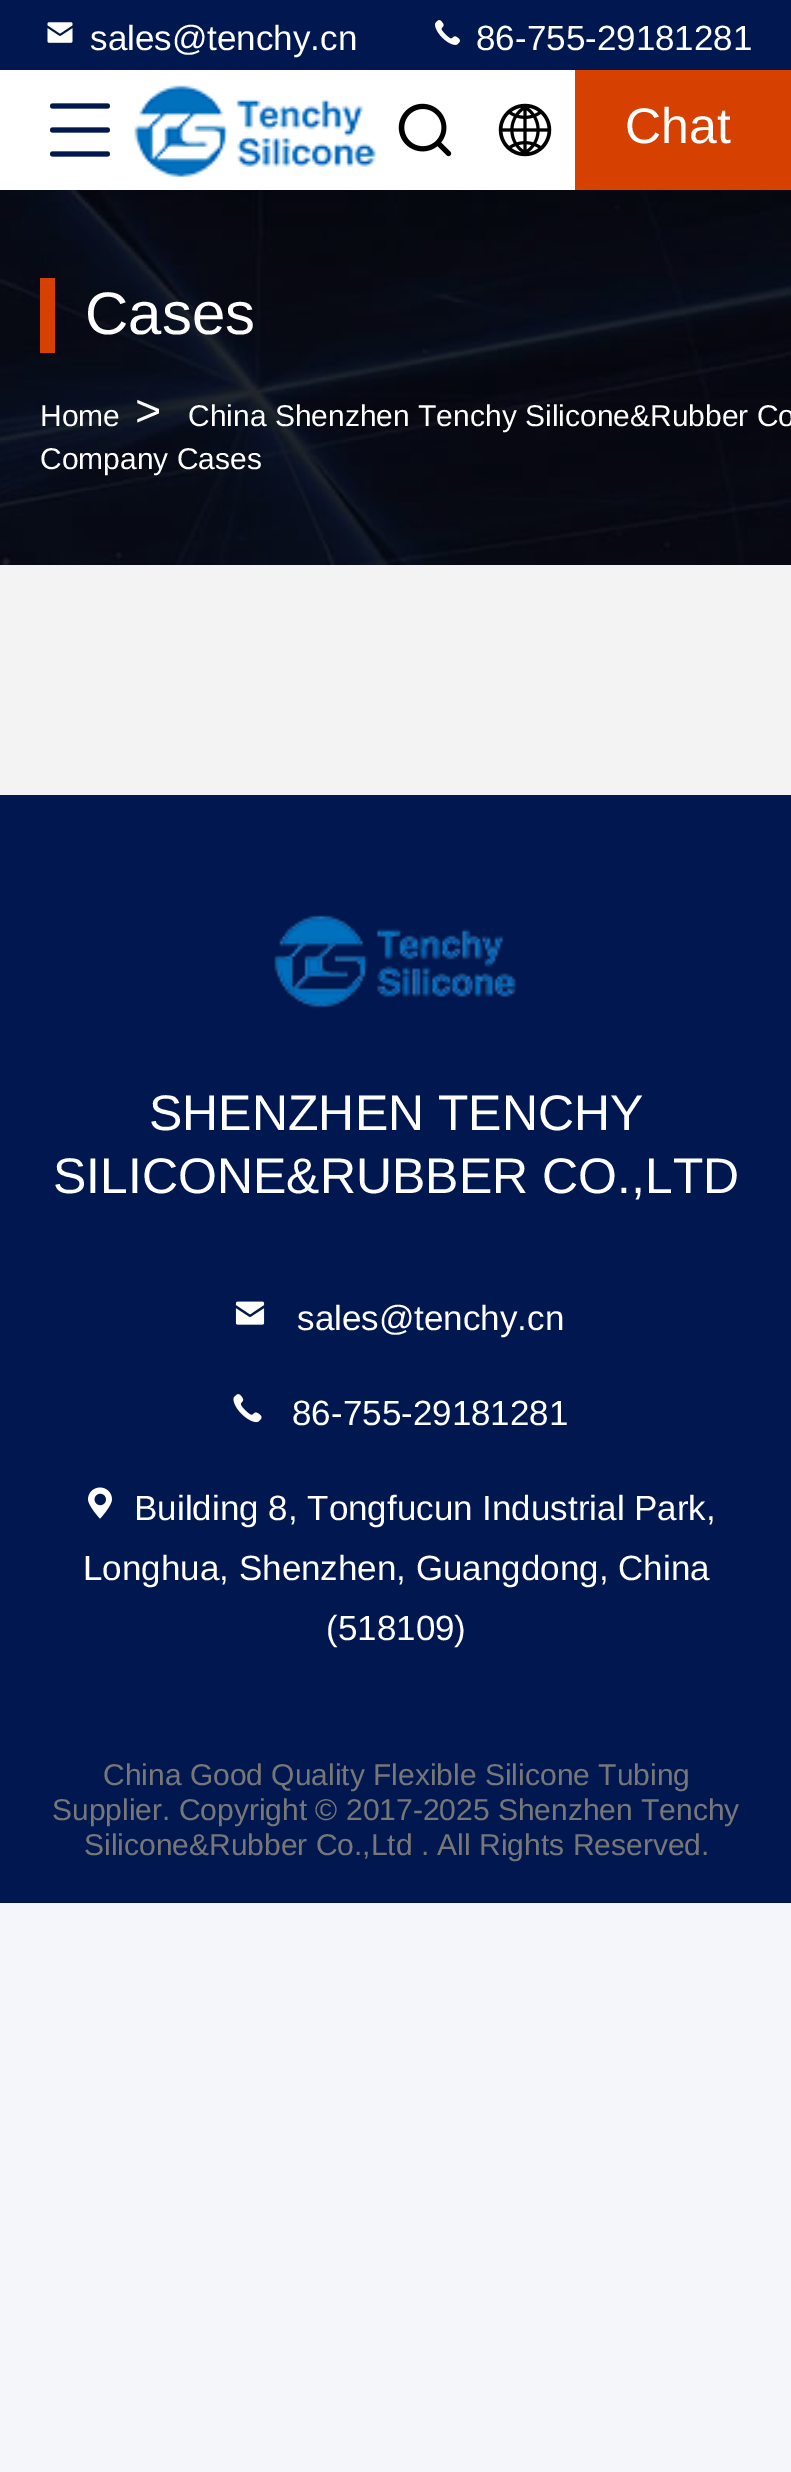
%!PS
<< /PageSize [791 2472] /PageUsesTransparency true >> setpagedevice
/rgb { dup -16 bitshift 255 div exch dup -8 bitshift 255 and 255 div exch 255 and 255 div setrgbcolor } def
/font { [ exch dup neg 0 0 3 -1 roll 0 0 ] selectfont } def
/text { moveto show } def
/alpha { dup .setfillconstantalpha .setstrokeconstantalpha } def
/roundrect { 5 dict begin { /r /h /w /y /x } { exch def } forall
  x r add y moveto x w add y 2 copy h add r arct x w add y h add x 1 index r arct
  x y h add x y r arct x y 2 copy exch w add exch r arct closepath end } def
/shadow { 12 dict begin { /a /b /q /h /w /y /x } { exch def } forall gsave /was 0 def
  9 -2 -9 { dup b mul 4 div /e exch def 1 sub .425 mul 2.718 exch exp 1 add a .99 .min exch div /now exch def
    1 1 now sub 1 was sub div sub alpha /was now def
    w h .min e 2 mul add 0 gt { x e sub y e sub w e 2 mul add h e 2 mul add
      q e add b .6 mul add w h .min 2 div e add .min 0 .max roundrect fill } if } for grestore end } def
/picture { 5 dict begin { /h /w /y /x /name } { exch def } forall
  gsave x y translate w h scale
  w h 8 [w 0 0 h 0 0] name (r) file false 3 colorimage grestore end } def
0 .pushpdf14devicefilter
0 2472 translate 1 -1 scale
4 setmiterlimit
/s1 { /LiberationSans-Regular 35 font 16#FFFFFF rgb } def
/s2 { /LiberationSans-Regular 50 font 16#FFFFFF rgb } def
/s3 { /LiberationSans-Regular 60 font 16#FFFFFF rgb } def
/s4 { /LiberationSans-Regular 30 font 16#FFFFFF rgb } def
/s5 { /LiberationSans-Regular 45 font 16#FFFFFF rgb } def
/s6 { /LiberationSans-Regular 30 font 16#777777 rgb } def
16#F4F6F9 rgb
0 0 791 2472 rectfill
(pic7.raw) 0 190 791 375 picture
16#000000 rgb
0 5 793 190 0 7.5 0.15 shadow
16#00184F rgb
0 0 791 70 rectfill
(pic1.raw) 47 22 26 21 picture
s1
(sales@tenchy.cn) 90 50 text
(pic2.raw) 435 20 25 25 picture
(86-755-29181281) 476 50 text
0 70 575 120 rectfill
(pic3.raw) 50 103 60 54 picture
(pic4.raw) 134 85 242 92 picture
(pic5.raw) 398 103 54 54 picture
(pic6.raw) 498 103 54 54 picture
16#D64000 rgb
575 70 216 120 rectfill
s2
(Chat) 625 143 text
16#F3F3F3 rgb
0 565 791 230 rectfill
16#D64000 rgb
40 278 15 75 rectfill
s3
(Cases) 85 334 text
s4
(Home) 40 426 text
s5
(>) 135 426 text
s4
(China Shenzhen Tenchy Silicone&Rubber Co) 188 426 text
(Company Cases) 40 469 text
16#00184F rgb
0 795 791 1108 rectfill
(pic8.raw) 274 915 242 92 picture
s2
(SHENZHEN TENCHY) 149 1130 text
(SILICONE&RUBBER CO.,LTD) 53 1193 text
(pic9.raw) 235 1301 30 24 picture
s1
(sales@tenchy.cn) 297 1330 text
(pic10.raw) 233 1394 29 29 picture
(86-755-29181281) 292 1425 text
(pic11.raw) 88 1487 24 32 picture
(Building 8, Tongfucun Industrial Park,) 134 1520 text
(Longhua, Shenzhen, Guangdong, China) 83 1580 text
(\(518109\)) 326 1640 text
s6
(China Good Quality Flexible Silicone Tubing) 103 1785 text
(Supplier. Copyright © 2017-2025 Shenzhen Tenchy) 52 1820 text
(Silicone&Rubber Co.,Ltd . All Rights Reserved.) 84 1855 text
.poppdf14devicefilter showpage
